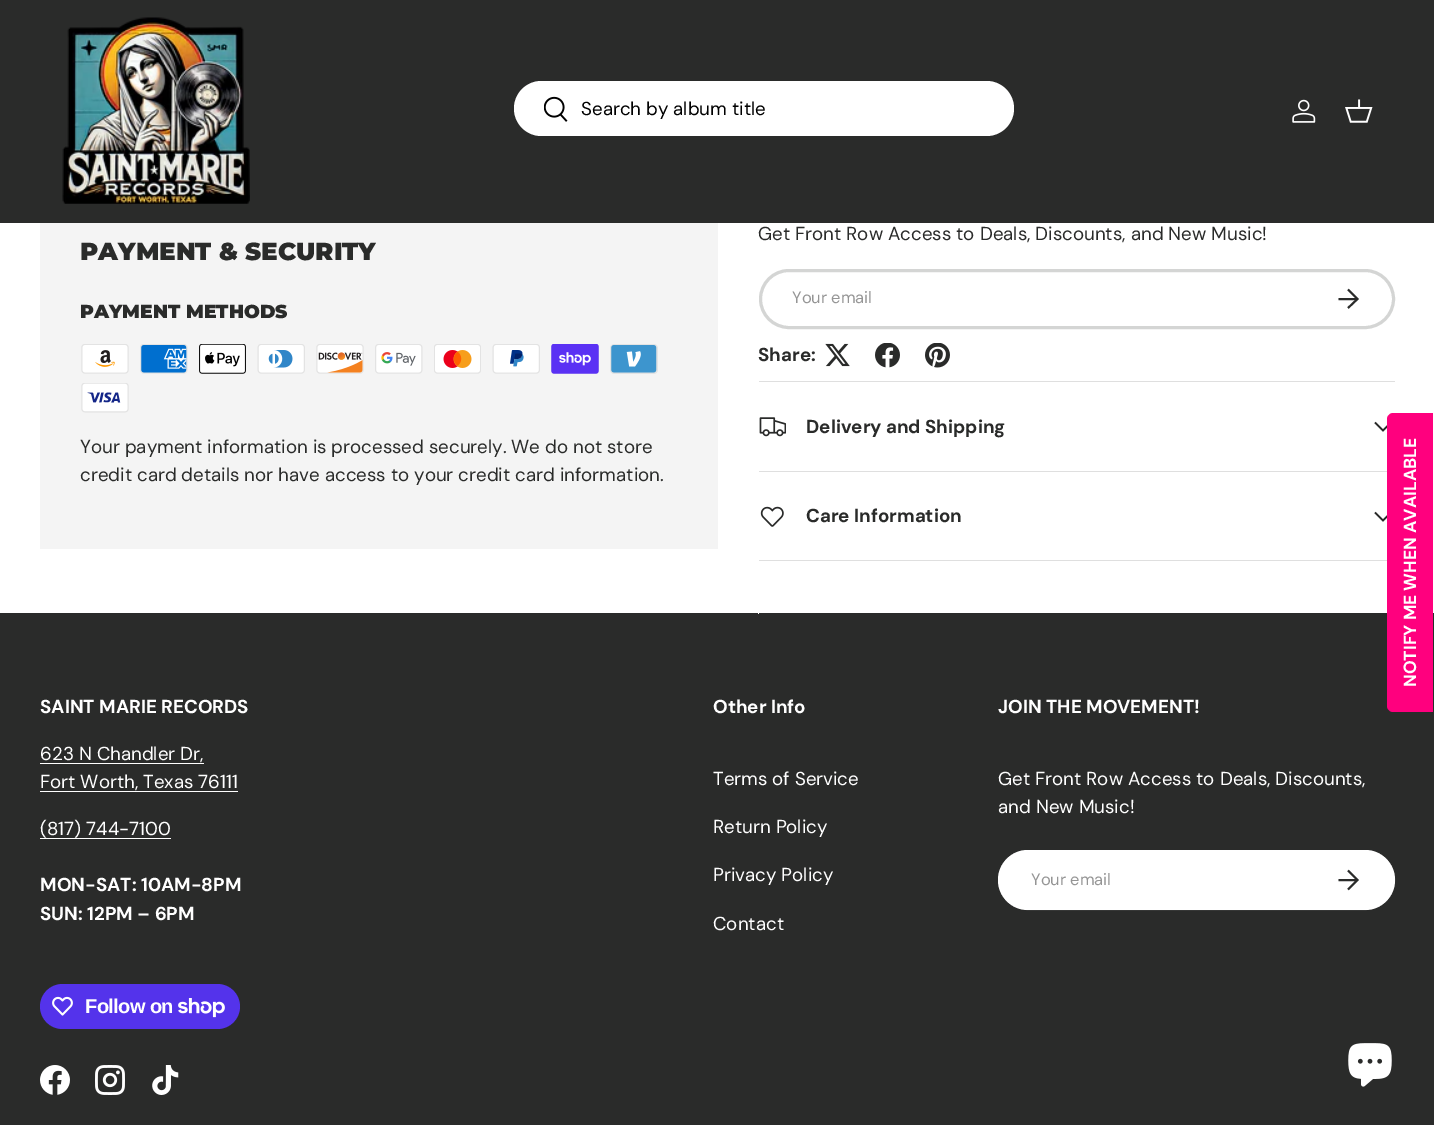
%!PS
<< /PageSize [1434 1125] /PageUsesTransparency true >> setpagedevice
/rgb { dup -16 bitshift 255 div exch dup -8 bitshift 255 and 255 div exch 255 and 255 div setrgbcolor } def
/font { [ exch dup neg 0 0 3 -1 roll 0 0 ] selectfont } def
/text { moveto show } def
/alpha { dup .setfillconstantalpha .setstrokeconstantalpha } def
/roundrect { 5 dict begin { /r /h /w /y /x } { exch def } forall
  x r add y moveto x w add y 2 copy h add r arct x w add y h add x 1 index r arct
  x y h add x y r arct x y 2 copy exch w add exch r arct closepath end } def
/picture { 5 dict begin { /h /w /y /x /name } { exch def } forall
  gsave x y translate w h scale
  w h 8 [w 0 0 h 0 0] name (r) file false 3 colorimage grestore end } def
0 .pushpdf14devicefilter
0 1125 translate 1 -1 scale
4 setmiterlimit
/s1 { /DMSans-Regular 18.75 font 16#000000 rgb } def
/s2 { /Montserrat-Black 24.6 font 16#2A2B2A rgb } def
/s3 { /Montserrat-Black 18.75 font 16#2A2B2A rgb } def
/s4 { /DMSans-Regular 18.75 font 16#2A2B2A rgb } def
/s5 { /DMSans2-Regular 16.5 font 16#959595 rgb } def
/s6 { /DMSans-Bold 18.75 font 16#2A2B2A rgb } def
/s7 { /DMSans-Bold 18.75 font 16#FFFFFF rgb } def
/s8 { /DMSans-Regular 18.75 font 16#FFFFFF rgb } def
16#FFFFFF rgb
0 0 1434 1125 rectfill
16#2A2B2A rgb
0 0 1434 223 rectfill
(pic1.raw) 62 17 188 187 picture
16#FFFFFF rgb
514 81 500 55 27.5 roundrect fill
(pic2.raw) 544 96 24 26 picture
s1
(Search by album title) 581 115 text
(pic3.raw) 1292 99 24 24 picture
(pic4.raw) 1345 99 28 24 picture
16#F4F4F4 rgb
40 223 678 326 rectfill
s2
(PAYMENT & SECURITY) 80 260 text
s3
(PAYMENT METHODS) 80 318 text
(pic5.raw) 81 344 48 30 picture
(pic6.raw) 140 344 48 30 picture
(pic7.raw) 199 344 47 30 picture
(pic8.raw) 257 344 48 30 picture
(pic9.raw) 316 344 48 30 picture
(pic10.raw) 375 344 48 30 picture
(pic11.raw) 434 344 47 30 picture
(pic12.raw) 492 344 48 30 picture
(pic13.raw) 551 344 48 30 picture
(pic14.raw) 610 344 48 30 picture
(pic15.raw) 81 383 48 30 picture
s4
(Your payment information is processed securely. We do not store) 80 453 text
(credit card details nor have access to your credit card information.) 80 481 text
(Get Front Row Access to Deals, Discounts, and New Music!) 758 240 text
16#D4D5D4 rgb
3 setlinewidth
760.5 270.5 633 57 28.5 roundrect stroke
s5
(Your email) 792 303 text
16#2A2B2A rgb
1.9 setlinewidth
1338.5 299 moveto 1356.5 299 lineto 1348 289.5 moveto 1357.5 299 lineto 1348 308 lineto stroke
s6
(Share:) 758 361 text
(pic16.raw) 825 343 25 24 picture
(pic17.raw) 875 343 25 25 picture
(pic18.raw) 925 343 25 25 picture
16#DFDFDF rgb
759 381 636 1 rectfill
759 471 636 1 rectfill
(pic19.raw) 759 417 27 20 picture
s6
(Delivery and Shipping) 806 433 text
1.6 setlinewidth
1391 422.5 moveto 1383 430.5 lineto 1375 422.5 lineto stroke
16#DFDFDF rgb
759 560 636 1 rectfill
(pic20.raw) 760 506 24 21 picture
s6
(Care Information) 806 522 text
1391 512.5 moveto 1383 520.5 lineto 1375 512.5 lineto stroke
0 613 1434 512 rectfill
16#FFFFFF rgb
758 613 1 1 rectfill
16#FF007E rgb
1387 706 moveto 1387 419 lineto 1387 416 1390 413 1393 413 curveto 1433 413 lineto 1433 712 lineto 1393 712 lineto 1390 712 1387 709 1387 706 curveto closepath fill
/DMSans2-Bold 17.5 font
16#FFFFFF rgb
gsave 1416 687 translate -90 rotate 0 0 moveto (NOTIFY ME WHEN AVAILABLE) show grestore
s7
(SAINT MARIE RECORDS) 40 713 text
s8
(623 N Chandler Dr,) 40 760 text
40 763 164 1 rectfill
(Fort Worth, Texas 76111) 40 788 text
40 791 198 1 rectfill
(\(817\) 744-7100) 40 835 text
40 838 131 1 rectfill
s7
(MON-SAT: 10AM-8PM) 40 891 text
(SUN: 12PM – 6PM) 40 920 text
16#5433EB rgb
40 984 200 45 22.5 roundrect fill
(pic21.raw) 52 996 21 20 picture
/LiberationSans-Bold 20 font
16#FFFFFF rgb
85 1013 moveto -0.6 0 (Follow on) ashow
(pic22.raw) 178 998 47 20 picture
(pic23.raw) 40 1065 30 30 picture
(pic24.raw) 95 1065 30 30 picture
(pic25.raw) 152 1065 27 30 picture
s7
(Other Info) 713 713 text
s8
(Terms of Service) 713 785 text
(Return Policy) 713 833 text
(Privacy Policy) 713 881 text
(Contact) 713 930 text
s7
(JOIN THE MOVEMENT!) 998 713 text
s8
(Get Front Row Access to Deals, Discounts,) 998 785 text
(and New Music!) 998 813 text
998 850 397 60 30 roundrect fill
0.2 alpha
3 setlinewidth
999.5 851.5 394 57 28.5 roundrect stroke
1 alpha
s5
(Your email) 1031 885 text
16#2A2B2A rgb
1.9 setlinewidth
1338.5 880 moveto 1356.5 880 lineto 1348 870.5 moveto 1357.5 880 lineto 1348 889.5 lineto stroke
(pic26.raw) 1348 1043 44 44 picture
.poppdf14devicefilter showpage
